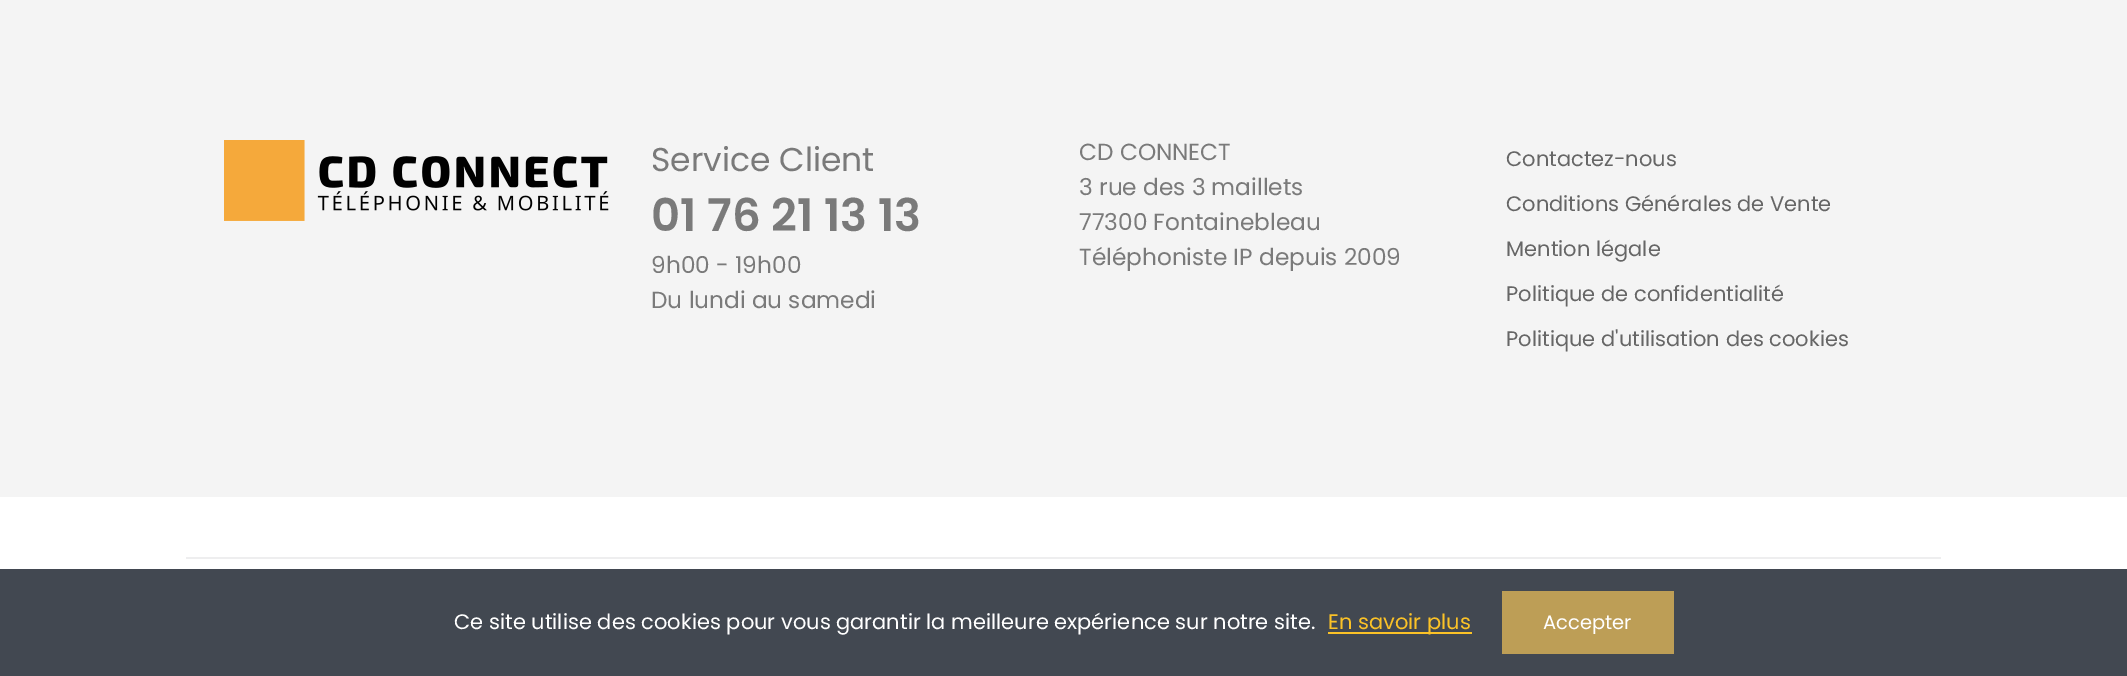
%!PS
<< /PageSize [2127 676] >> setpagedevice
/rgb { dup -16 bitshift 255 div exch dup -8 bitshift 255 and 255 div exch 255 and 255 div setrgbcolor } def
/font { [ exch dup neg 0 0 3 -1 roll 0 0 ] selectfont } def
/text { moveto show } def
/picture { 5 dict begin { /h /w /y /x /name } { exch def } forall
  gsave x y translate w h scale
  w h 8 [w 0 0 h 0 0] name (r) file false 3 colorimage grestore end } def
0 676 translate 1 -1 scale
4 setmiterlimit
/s1 { /Poppins-Regular 33 font 16#7A7A7A rgb } def
/s2 { /Poppins-SemiBold 45 font 16#7A7A7A rgb } def
/s3 { /Poppins-Regular 23.25 font 16#7A7A7A rgb } def
/s4 { /Poppins-Regular 21 font 16#666666 rgb } def
/s5 { /Poppins-Regular 21 font 16#FFFFFF rgb } def
/s6 { /Poppins-Regular 21 font 16#FBC227 rgb } def
/s7 { /Poppins-Regular 19.5 font 16#FFFFFF rgb } def
16#FFFFFF rgb
0 0 2127 676 rectfill
16#F4F4F4 rgb
0 0 2127 497 rectfill
(pic1.raw) 224 140 385 81 picture
s1
(Service Client) 651 171 text
s2
(01 76 21 13 13) 651 231 text
s3
(9h00 - 19h00) 651 273 text
(Du lundi au samedi) 651 308 text
(CD CONNECT) 1079 160 text
(3 rue des 3 maillets) 1079 195 text
(77300 Fontainebleau) 1079 230 text
(Téléphoniste IP depuis 2009) 1079 265 text
s4
(Contactez-nous) 1506 166 text
(Conditions Générales de Vente) 1506 211 text
(Mention légale) 1506 256 text
(Politique de confidentialité) 1506 301 text
(Politique d'utilisation des cookies) 1506 346 text
16#EEEEEF rgb
186 557 1755 2 rectfill
16#424851 rgb
0 569 2127 107 rectfill
s5
(Ce site utilise des cookies pour vous garantir la meilleure expérience sur notre site.) 454 629 text
16#FBC227 rgb
1328 632 144 2 rectfill
(En savoir plus) 1328 629 text
16#BD9E56 rgb
1502 591 172 63 rectfill
s7
(Accepter) 1543 629 text
showpage
